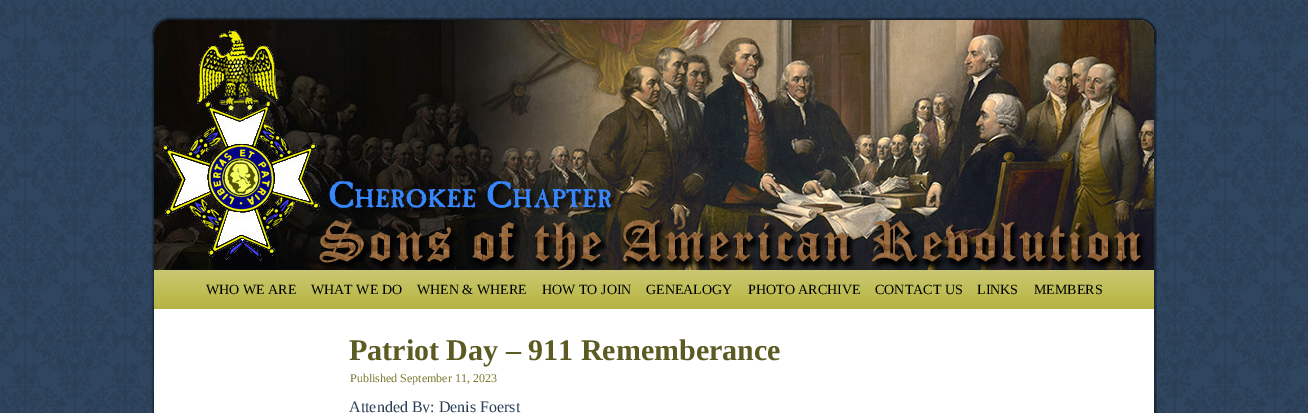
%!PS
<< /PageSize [1308 413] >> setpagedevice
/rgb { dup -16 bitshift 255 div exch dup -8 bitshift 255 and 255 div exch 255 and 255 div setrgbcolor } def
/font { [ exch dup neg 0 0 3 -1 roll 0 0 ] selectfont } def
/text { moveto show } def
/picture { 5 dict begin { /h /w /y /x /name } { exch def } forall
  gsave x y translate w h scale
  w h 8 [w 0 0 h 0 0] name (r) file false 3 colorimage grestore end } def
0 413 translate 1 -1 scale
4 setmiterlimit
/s1 { /LiberationSerif-Regular 14 font 16#000000 rgb } def
/s2 { /LiberationSerif-Bold 30 font 16#5C5B23 rgb } def
/s3 { /LiberationSerif-Regular 12 font 16#7A792E rgb } def
/s4 { /LiberationSerif-Regular 16 font 16#2A3E55 rgb } def
16#FFFFFF rgb
0 0 1308 413 rectfill
(pic1.raw) 0 0 1308 413 picture
(pic2.raw) 151 17 979 27 picture
(pic3.raw) 151 17 979 27 picture
(pic4.raw) 1130 17 27 27 picture
(pic5.raw) 1130 17 27 27 picture
(pic8.raw) 151 44 979 369 picture
(pic9.raw) 1130 44 27 369 picture
(pic6.raw) 154 20 1000 250 picture
(pic7.raw) 169 20 970 250 picture
(pic10.raw) 154 270 990 39 picture
(pic11.raw) 1144 270 10 39 picture
s1
(WHO WE ARE) 206 294 text
(WHAT WE DO) 311 294 text
(WHEN & WHERE) 417 294 text
(HOW TO JOIN) 542 294 text
(GENEALOGY) 646 294 text
(PHOTO ARCHIVE) 748 294 text
(CONTACT US) 875 294 text
(LINKS) 977 294 text
(MEMBERS) 1034 294 text
s2
(Patriot Day – 911 Rememberance) 349 360 text
s3
(Published September 11, 2023) 350 382 text
s4
(Attended By: Denis Foerst) 349 412 text
showpage
